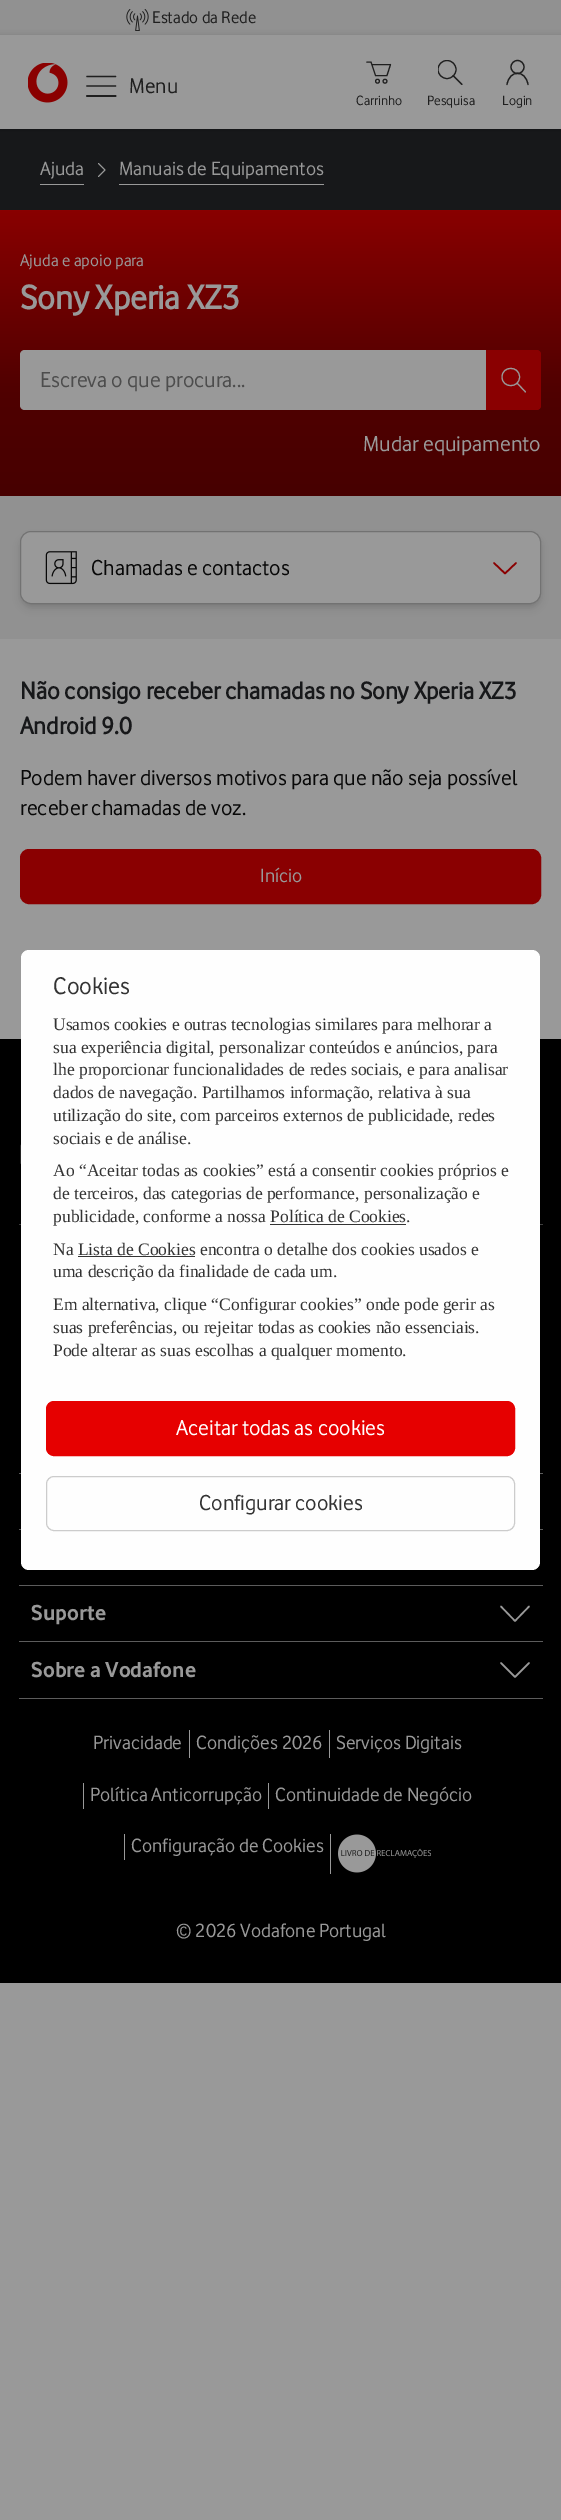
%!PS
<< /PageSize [561 2520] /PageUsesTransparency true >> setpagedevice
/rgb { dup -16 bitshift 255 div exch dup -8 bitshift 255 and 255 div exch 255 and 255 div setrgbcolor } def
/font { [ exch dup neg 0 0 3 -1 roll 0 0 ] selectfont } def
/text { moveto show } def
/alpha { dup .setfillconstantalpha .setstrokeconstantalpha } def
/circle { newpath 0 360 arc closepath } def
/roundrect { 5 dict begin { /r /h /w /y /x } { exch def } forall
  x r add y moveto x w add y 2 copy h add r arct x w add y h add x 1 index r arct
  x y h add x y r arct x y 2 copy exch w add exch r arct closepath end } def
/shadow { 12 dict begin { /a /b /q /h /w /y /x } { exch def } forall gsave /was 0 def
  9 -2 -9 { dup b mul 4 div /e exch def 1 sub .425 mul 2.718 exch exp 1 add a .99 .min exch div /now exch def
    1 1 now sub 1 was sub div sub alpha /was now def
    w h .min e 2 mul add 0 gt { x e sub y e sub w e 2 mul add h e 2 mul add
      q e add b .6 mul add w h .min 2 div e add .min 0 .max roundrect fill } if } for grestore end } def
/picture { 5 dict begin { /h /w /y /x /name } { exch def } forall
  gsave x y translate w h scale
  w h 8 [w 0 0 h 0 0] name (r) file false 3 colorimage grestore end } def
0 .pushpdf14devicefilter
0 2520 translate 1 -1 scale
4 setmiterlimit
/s1 { /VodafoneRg-Regular 17.5 font 16#1F1F1F rgb } def
/s2 { /VodafoneRg-Regular 22 font 16#1F1F1F rgb } def
/s3 { /VodafoneRg-Regular 14 font 16#1F1F1F rgb } def
/s4 { /VodafoneRg-Regular 20 font 16#999999 rgb } def
/s5 { /VodafoneRg-Regular 17.5 font 16#999999 rgb } def
/s6 { /VodafoneRg-Bold 35 font 16#999999 rgb } def
/s7 { /VodafoneRg-Regular 22.5 font 16#4D4D4D rgb } def
/s8 { /VodafoneRg-Regular 22.5 font 16#999999 rgb } def
/s9 { /VodafoneRg-Regular 22.5 font 16#080808 rgb } def
/s10 { /VodafoneRg-Bold 25 font 16#17181A rgb } def
/s11 { /VodafoneRg-Regular 25 font 16#333333 rgb } def
/s12 { /LiberationSerif-Regular 17.5 font 16#333333 rgb } def
/s13 { /VodafoneRg-Regular 22.5 font 16#FFFFFF rgb } def
/s14 { /VodafoneRg-Regular 22.5 font 16#333333 rgb } def
/s15 { /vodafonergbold-Bold 22.5 font 16#999999 rgb } def
16#999999 rgb
0 0 561 2520 rectfill
16#919191 rgb
0 0 561 35 rectfill
(pic1.raw) 126 9 23 22 picture
s1
(Estado da Rede) 152 23 text
16#17181A rgb
0 129 561 81 rectfill
16#000000 rgb
0 36 561 94 0 3 0.2 shadow
16#999999 rgb
0 35 561 94 rectfill
(pic2.raw) 28 63 40 40 picture
16#1F1F1F rgb
1.7 setlinewidth
1 setlinecap
115.5 96 moveto 87 96 lineto stroke
1.3 setlinewidth
115.5 86 moveto 87 86 lineto 115.5 76.5 moveto 87 76.5 lineto stroke
s2
(Menu) 129 93 text
1.1 setlinewidth
0 setlinecap
377.5 81.2 1.9 circle stroke
385 81.2 1.9 circle stroke
1 setlinecap
1 setlinejoin
367 62 moveto 371 62 lineto 375.5 75.5 lineto 387 75.5 lineto 390.5 64.5 lineto 372 64.5 lineto stroke
s3
(Carrinho) 356 105 text
gsave
438 60 25 25 rectclip
0 setlinecap
0 setlinejoin
447 69.5 9 circle stroke
grestore
453 75.5 moveto 462 84.5 lineto stroke
(Pesquisa) 427 105 text
1.2 setlinewidth
0 setlinecap
0 setlinejoin
517.5 67 6.5 circle stroke
1 setlinecap
1 setlinejoin
528 84.5 moveto 525.5 69.5 509.5 69.5 507 84.5 curveto stroke
(Login) 502 105 text
16#999999 rgb
40 184 44 1 rectfill
s4
(Ajuda) 40 175 text
0.9 setlinewidth
98.5 163.5 moveto 105 170 lineto 98.5 176.5 lineto stroke
119 184 205 1 rectfill
(Manuais de Equipamentos) 119 175 text
gsave 0 210 moveto 561 210 lineto 561 496 lineto 0 496 lineto closepath clip newpath
<< /ShadingType 2 /ColorSpace /DeviceRGB /Coords [281 496 281 210] /Extend [true true] /Function << /FunctionType 3 /Domain [0 1] /Functions [<< /FunctionType 2 /Domain [0 1] /C0 [0.278 0 0] /C1 [0.31 0 0] /N 1 >> << /FunctionType 2 /Domain [0 1] /C0 [0.31 0 0] /C1 [0.537 0.004 0.004] /N 1 >>] /Bounds [0.36] /Encode [0 1 0 1] >> >> shfill grestore
s5
(Ajuda e apoio para) 20 266 text
s6
(Sony Xperia XZ3) 20 309 text
25 350 moveto 486 350 lineto 486 410 lineto 25 410 lineto 22 410 20 408 20 405 curveto 20 355 lineto 20 352 22 350 25 350 curveto closepath fill
s7
(Escreva o que procura...) 40 387 text
16#8A0001 rgb
486 350 moveto 536 350 lineto 539 350 541 352 541 355 curveto 541 405 lineto 541 408 539 410 536 410 curveto 486 410 lineto closepath fill
488.5 350 moveto 536 350 lineto 539 350 541 352 541 355 curveto 541 405 lineto 541 408 539 410 536 410 curveto 488.5 410 lineto 487 410 486 409 486 407.5 curveto 486 352.5 lineto 486 351 487 350 488.5 350 curveto closepath fill
16#999999 rgb
1.1 setlinewidth
517 383 moveto 525.5 392 lineto 519.5 377 moveto 519.5 388.5 502 388.5 502 377 curveto 502 365.5 519.5 365.5 519.5 377 curveto closepath stroke
(Mudar equipamento) 363 451 text
16#919191 rgb
0 496 561 143 rectfill
16#000000 rgb
23 536 516 68 9 2.5 0.1 shadow
21 538 519 70 10 4 0.1 shadow
16#999999 rgb
20.5 531.5 520 72 10.5 roundrect gsave fill grestore
16#727272 rgb
1 setlinewidth
0 setlinecap
0 setlinejoin
stroke
(pic3.raw) 45 551 32 34 picture
s9
(Chamadas e contactos) 91 575 text
16#8A0001 rgb
1.6 setlinewidth
1 setlinecap
1 setlinejoin
516 563 moveto 505 573.5 lineto 494 563 lineto stroke
s10
(Não consigo receber chamadas no Sony Xperia XZ3) 20 699 text
(Android 9.0) 20 734 text
s9
(Podem haver diversos motivos para que não seja possível) 20 785 text
(receber chamadas de voz.) 20 815 text
16#8A0001 rgb
21.5 850.5 518 52 7.5 roundrect gsave fill grestore
3 setlinewidth
0 setlinecap
0 setlinejoin
stroke
s4
(Início) 260 882 text
16#000000 rgb
0 1039 561 944 rectfill
16#3D3D3D rgb
19 1224 524 1 rectfill
16#5C5C5C rgb
19 1473 524 1 rectfill
19 1529 524 1 rectfill
16#FEFEFE rgb
21 950 519 620 8 roundrect fill
s11
(Cookies) 53 994 text
s12
(Usamos cookies e outras tecnologias similares para melhorar a) 53 1030 text
(sua experiência digital, personalizar conteúdos e anúncios, para) 53 1053 text
(lhe proporcionar funcionalidades de redes sociais, e para analisar) 53 1075 text
(dados de navegação. Partilhamos informação, relativa à sua) 53 1098 text
(utilização do site, com parceiros externos de publicidade, redes) 53 1121 text
(sociais e de análise.) 53 1144 text
(Ao “Aceitar todas as cookies” está a consentir cookies próprios e) 53 1176 text
(de terceiros, das categorias de performance, personalização e) 53 1199 text
(publicidade, conforme a nossa Política de Cookies.) 53 1222 text
270 1224 136 1 rectfill
(Na Lista de Cookies encontra o detalhe dos cookies usados e) 53 1255 text
78 1256 117 1 rectfill
(uma descrição da finalidade de cada um.) 53 1277 text
(Em alternativa, clique “Configurar cookies” onde pode gerir as) 53 1310 text
(suas preferências, ou rejeitar todas as cookies não essenciais.) 53 1333 text
(Pode alterar as suas escolhas a qualquer momento.) 53 1356 text
16#E60000 rgb
46.5 1401.5 468 54 7.5 roundrect gsave fill grestore
1 setlinewidth
stroke
s13
(Aceitar todas as cookies) 176 1435 text
16#CCCCCC rgb
46.5 1476.5 468 54 7.5 roundrect stroke
s14
(Configurar cookies) 199 1510 text
(pic4.raw) 20 1144 1 20 picture
16#5C5C5C rgb
19 1585 524 1 rectfill
s15
(Suporte) 31 1620 text
1.5 setlinewidth
1 setlinecap
1 setlinejoin
529 1606.5 moveto 515 1621 lineto 501 1606.5 lineto stroke
16#5C5C5C rgb
19 1698 524 1 rectfill
19 1641 524 1 rectfill
s15
(Sobre a Vodafone) 31 1677 text
529 1663 moveto 515 1677 lineto 501 1663 lineto stroke
s4
(Privacidade) 93 1749 text
189 1730 1 28 rectfill
(Condições 2026) 196 1749 text
329 1730 1 28 rectfill
(Serviços Digitais) 336 1749 text
83 1783 1 26 rectfill
(Política Anticorrupção) 90 1801 text
268 1783 1 26 rectfill
(Continuidade de Negócio) 275 1801 text
124 1834 1 26 rectfill
(Configuração de Cookies) 131 1852 text
330 1834 1 40 rectfill
(pic5.raw) 338 1834 93 39 picture
(© 2026 Vodafone Portugal) 176 1937 text
.poppdf14devicefilter showpage
